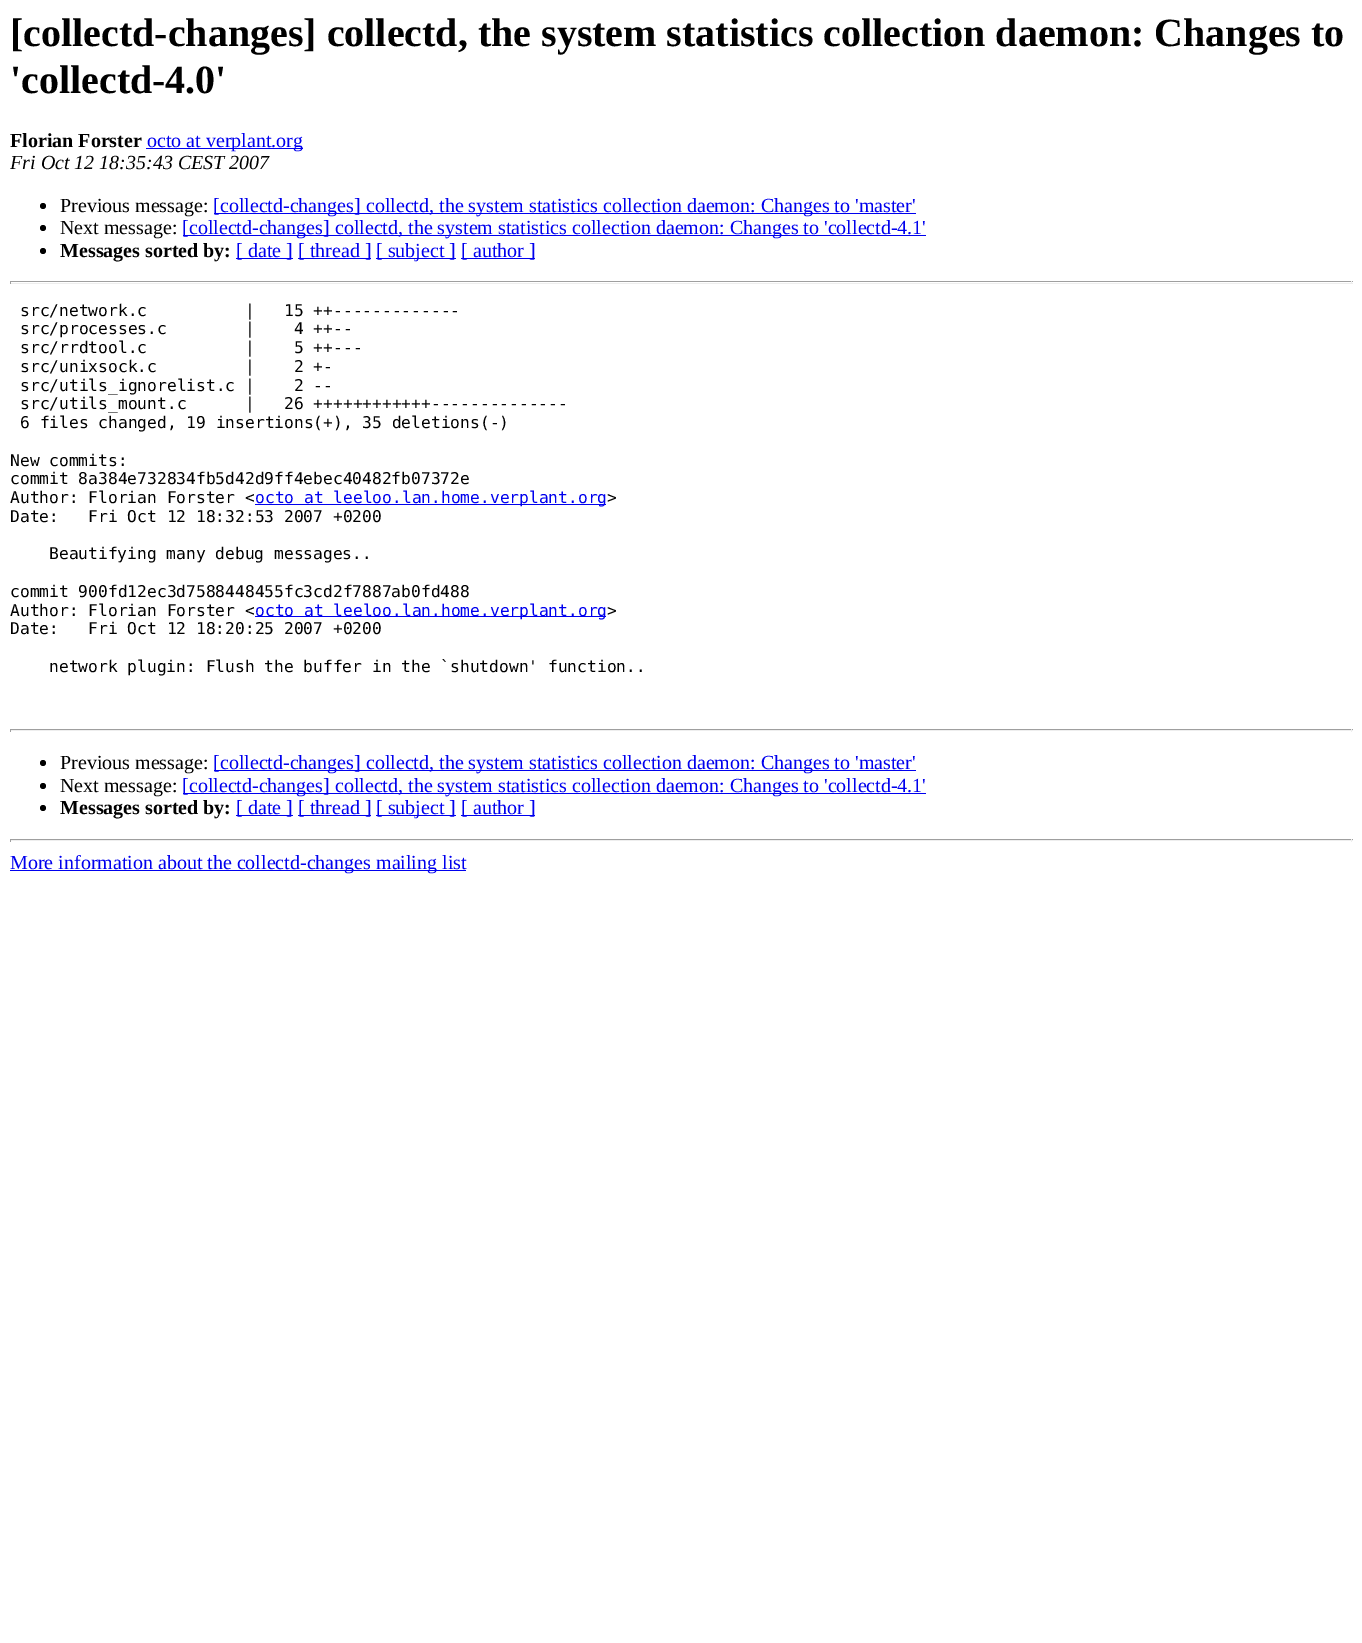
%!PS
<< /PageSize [1362 1643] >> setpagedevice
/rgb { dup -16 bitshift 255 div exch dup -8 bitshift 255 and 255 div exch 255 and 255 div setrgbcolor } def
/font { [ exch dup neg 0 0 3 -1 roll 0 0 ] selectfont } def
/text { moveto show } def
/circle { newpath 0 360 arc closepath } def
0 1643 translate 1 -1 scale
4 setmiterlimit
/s1 { /LiberationSerif-Bold 40 font 16#000000 rgb } def
/s2 { /LiberationSerif-Bold 20 font 16#000000 rgb } def
/s3 { /LiberationSerif-Regular 20 font 16#0000EE rgb } def
/s4 { /LiberationSerif-Italic 20 font 16#000000 rgb } def
/s5 { /LiberationSerif-Regular 20 font 16#000000 rgb } def
/s6 { /DejaVuSansMono-Regular 16.25 font 16#000000 rgb } def
/s7 { /DejaVuSansMono-Regular 16.25 font 16#0000EE rgb } def
16#FFFFFF rgb
0 0 1362 1643 rectfill
s1
([collectd-changes] collectd, the system statistics collection daemon: Changes to) 10 46 text
('collectd-4.0') 10 93 text
s2
(Florian Forster) 10 147 text
16#0000EE rgb
146 148 157 1 rectfill
s3
(octo at verplant.org) 147 147 text
s4
(Fri Oct 12 18:35:43 CEST 2007) 10 169 text
43 206 3 circle fill
s5
(Previous message:) 60 212 text
16#0000EE rgb
214 213 702 1 rectfill
([collectd-changes] collectd, the system statistics collection daemon: Changes to 'master') 213 212 text
16#000000 rgb
43 228 3 circle fill
(Next message:) 60 234 text
16#0000EE rgb
183 235 743 1 rectfill
([collectd-changes] collectd, the system statistics collection daemon: Changes to 'collectd-4.1') 182 234 text
16#000000 rgb
43 251 3 circle fill
s2
(Messages sorted by:) 60 257 text
16#0000EE rgb
236 258 57 1 rectfill
s3
([ date ]) 236 257 text
298 258 73 1 rectfill
([ thread ]) 298 257 text
376 258 80 1 rectfill
([ subject ]) 376 257 text
461 258 74 1 rectfill
([ author ]) 461 257 text
16#9F9F9F rgb
10 281 1343 1 rectfill
16#EEEEEE rgb
1351 281 1 3 rectfill
10 283 1343 1 rectfill
16#9F9F9F rgb
10 281 1 3 rectfill
s6
(src/network.c          |   15 ++-------------) 20 316 text
(src/processes.c        |    4 ++--) 20 334 text
(src/rrdtool.c          |    5 ++---) 20 353 text
(src/unixsock.c         |    2 +-) 20 372 text
(src/utils_ignorelist.c |    2 --) 20 391 text
(src/utils_mount.c      |   26 ++++++++++++--------------) 20 409 text
(6 files changed, 19 insertions\(+\), 35 deletions\(-\)) 20 428 text
(New commits:) 10 466 text
(commit 8a384e732834fb5d42d9ff4ebec40482fb07372e) 10 484 text
(Author: Florian Forster <) 10 503 text
16#0000EE rgb
255 504 351 1 rectfill
(octo at leeloo.lan.home.verplant.org) 255 503 text
s6
(>) 607 503 text
(Date:   Fri Oct 12 18:32:53 2007 +0200) 10 522 text
(Beautifying many debug messages..) 49 559 text
(commit 900fd12ec3d7588448455fc3cd2f7887ab0fd488) 10 597 text
(Author: Florian Forster <) 10 616 text
16#0000EE rgb
255 616 351 1 rectfill
(octo at leeloo.lan.home.verplant.org) 255 616 text
s6
(>) 607 616 text
(Date:   Fri Oct 12 18:20:25 2007 +0200) 10 634 text
(network plugin: Flush the buffer in the `shutdown' function..) 49 672 text
16#9F9F9F rgb
10 729 1343 1 rectfill
16#EEEEEE rgb
1351 729 1 3 rectfill
10 730 1343 1 rectfill
16#9F9F9F rgb
10 729 1 3 rectfill
16#000000 rgb
43 763 3 circle fill
s5
(Previous message:) 60 769 text
16#0000EE rgb
214 770 702 1 rectfill
([collectd-changes] collectd, the system statistics collection daemon: Changes to 'master') 213 769 text
16#000000 rgb
43 786 3 circle fill
(Next message:) 60 792 text
16#0000EE rgb
183 793 743 1 rectfill
([collectd-changes] collectd, the system statistics collection daemon: Changes to 'collectd-4.1') 182 792 text
16#000000 rgb
43 808 3 circle fill
s2
(Messages sorted by:) 60 814 text
16#0000EE rgb
236 815 57 1 rectfill
s3
([ date ]) 236 814 text
298 815 73 1 rectfill
([ thread ]) 298 814 text
376 815 80 1 rectfill
([ subject ]) 376 814 text
461 815 74 1 rectfill
([ author ]) 461 814 text
16#9F9F9F rgb
10 839 1343 1 rectfill
16#EEEEEE rgb
1351 839 1 3 rectfill
10 840 1343 1 rectfill
16#9F9F9F rgb
10 839 1 3 rectfill
16#0000EE rgb
10 870 456 1 rectfill
(More information about the collectd-changes mailing list) 10 869 text
showpage
